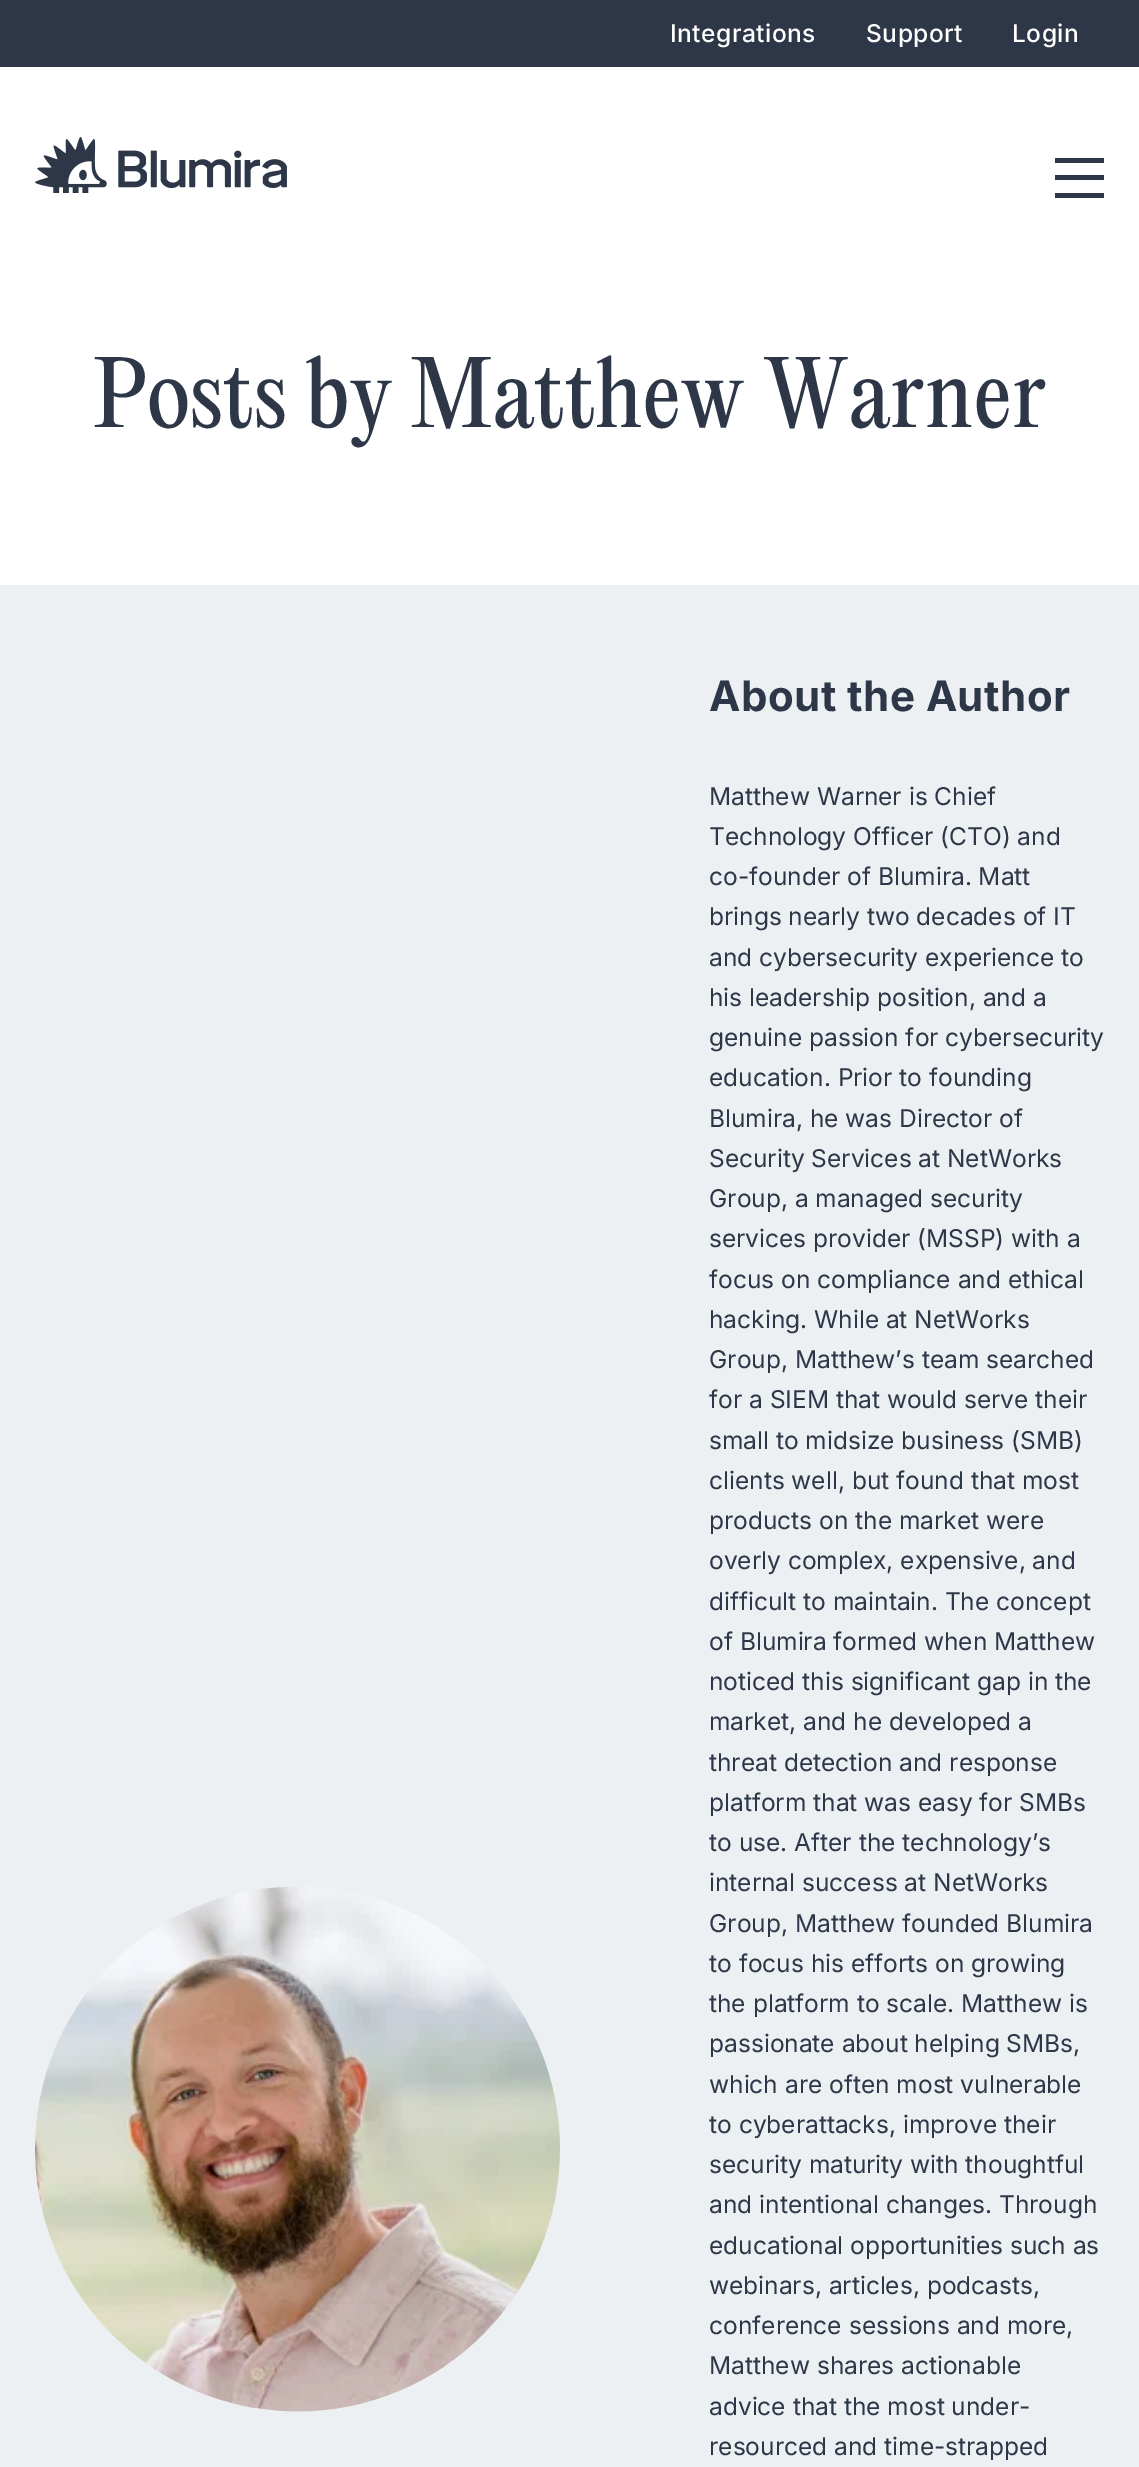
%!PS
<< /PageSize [1139 2467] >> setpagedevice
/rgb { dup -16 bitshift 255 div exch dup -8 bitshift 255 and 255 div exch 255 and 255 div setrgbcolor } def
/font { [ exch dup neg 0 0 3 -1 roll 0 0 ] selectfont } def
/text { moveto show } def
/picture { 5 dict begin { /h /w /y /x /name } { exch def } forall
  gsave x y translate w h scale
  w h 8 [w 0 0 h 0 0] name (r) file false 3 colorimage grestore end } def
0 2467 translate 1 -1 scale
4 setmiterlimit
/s1 { /Inter-Regular 24.5 font 16#2D3748 rgb } def
16#FFFFFF rgb
0 0 1139 2467 rectfill
16#2D3748 rgb
0 0 1139 67 rectfill
/Inter-Medium 24.5 font
16#FFFFFF rgb
670 42 moveto 0.5 0 (Integrations) ashow
866 42 moveto 0.5 0 (Support) ashow
1012 42 moveto 0.5 0 (Login) ashow
(pic1.raw) 35 137 252 56 picture
16#2D3748 rgb
1055 175 49 5 rectfill
1055 158 49 5 rectfill
1055 193 49 5 rectfill
/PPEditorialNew-Regular 87.5 font
93 427 moveto 0.25 0 (Posts by Matthew Warner) ashow
16#EDF0F2 rgb
0 585 1139 1882 rectfill
(pic2.raw) 35 1886 525 526 picture
/Inter-Bold 42 font
16#2D3748 rgb
709 711 moveto 0.5 0 (About the Author) ashow
s1
(Matthew Warner is Chief) 709 805 text
(Technology Officer \(CTO\) and) 709 845 text
(co-founder of Blumira. Matt) 709 885 text
(brings nearly two decades of IT) 709 925 text
(and cybersecurity experience to) 709 966 text
(his leadership position, and a) 709 1006 text
(genuine passion for cybersecurity) 709 1046 text
(education. Prior to founding) 709 1086 text
(Blumira, he was Director of) 709 1127 text
(Security Services at NetWorks) 709 1167 text
(Group, a managed security) 709 1207 text
(services provider \(MSSP\) with a) 709 1247 text
(focus on compliance and ethical) 709 1288 text
(hacking. While at NetWorks) 709 1328 text
(Group, Matthew’s team searched) 709 1368 text
(for a SIEM that would serve their) 709 1408 text
(small to midsize business \(SMB\)) 709 1449 text
(clients well, but found that most) 709 1489 text
(products on the market were) 709 1529 text
(overly complex, expensive, and) 709 1569 text
(difficult to maintain. The concept) 709 1610 text
(of Blumira formed when Matthew) 709 1650 text
(noticed this significant gap in the) 709 1690 text
(market, and he developed a) 709 1730 text
(threat detection and response) 709 1771 text
(platform that was easy for SMBs) 709 1811 text
(to use. After the technology’s) 709 1851 text
(internal success at NetWorks) 709 1891 text
(Group, Matthew founded Blumira) 709 1932 text
(to focus his efforts on growing) 709 1972 text
(the platform to scale. Matthew is) 709 2012 text
(passionate about helping SMBs,) 709 2052 text
(which are often most vulnerable) 709 2093 text
(to cyberattacks, improve their) 709 2133 text
(security maturity with thoughtful) 709 2173 text
(and intentional changes. Through) 709 2213 text
(educational opportunities such as) 709 2254 text
(webinars, articles, podcasts,) 709 2294 text
(conference sessions and more,) 709 2334 text
(Matthew shares actionable) 709 2374 text
(advice that the most under-) 709 2415 text
(resourced and time-strapped) 709 2455 text
showpage
